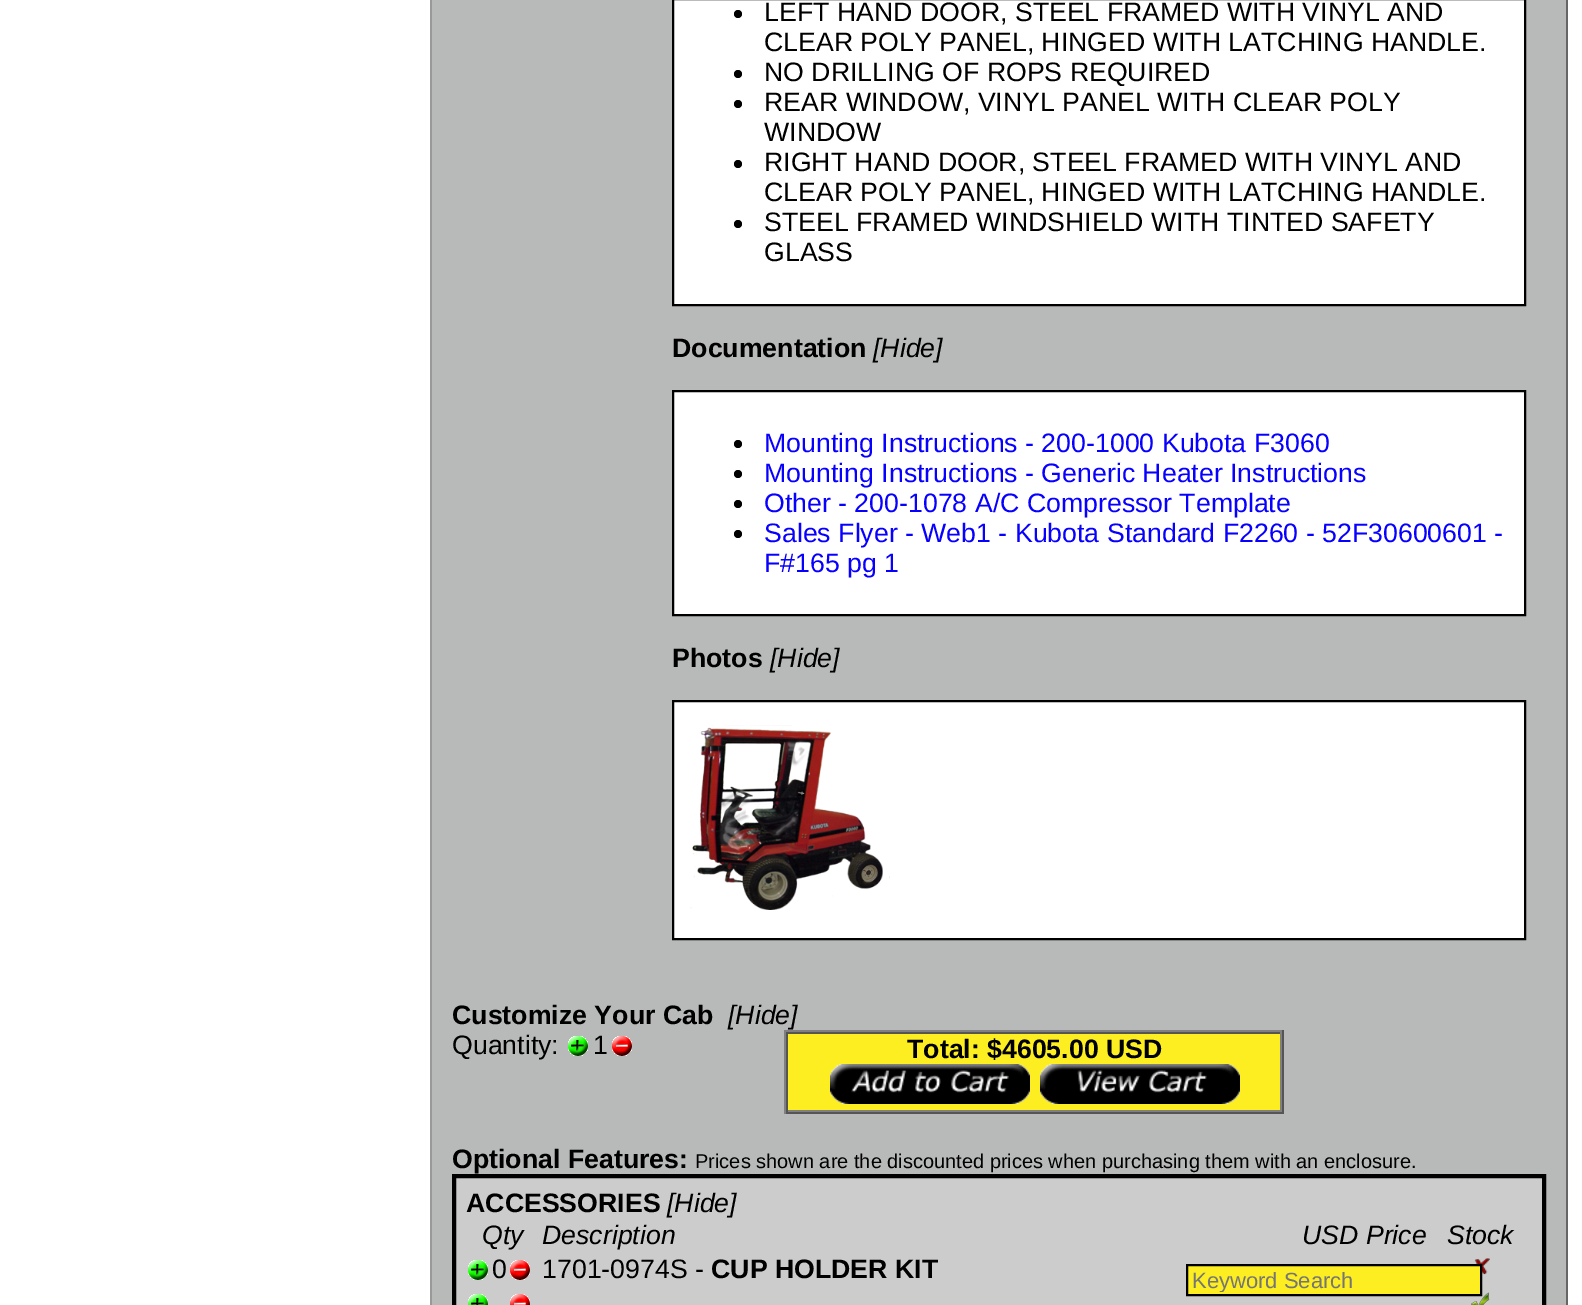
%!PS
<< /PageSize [1582 1305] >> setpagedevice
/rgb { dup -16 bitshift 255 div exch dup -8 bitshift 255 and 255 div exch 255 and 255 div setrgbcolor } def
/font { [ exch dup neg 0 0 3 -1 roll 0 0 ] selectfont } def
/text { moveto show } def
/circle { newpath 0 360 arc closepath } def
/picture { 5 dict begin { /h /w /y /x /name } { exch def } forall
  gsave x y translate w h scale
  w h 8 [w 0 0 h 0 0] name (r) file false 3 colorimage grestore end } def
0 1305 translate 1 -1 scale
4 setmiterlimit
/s1 { /LiberationSans-Regular 26.7 font 16#000000 rgb } def
/s2 { /LiberationSans-Bold 26.7 font 16#000000 rgb } def
/s3 { /LiberationSans-Italic 26.7 font 16#000000 rgb } def
/s4 { /LiberationSans-Regular 26.7 font 16#0800FF rgb } def
/s5 { /LiberationSans-Regular 20 font 16#000000 rgb } def
/s6 { /LiberationSans-Regular 22 font 16#757575 rgb } def
16#FFFFFF rgb
0 0 1582 1305 rectfill
16#B8B9B9 rgb
432 0 1134 1305 rectfill
16#666666 rgb
1566 0 2 1305 rectfill
16#999999 rgb
430 0 2 1305 rectfill
16#FFFFFF rgb
673 -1 moveto 1525 -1 lineto 1525 305 lineto 673 305 lineto closepath gsave fill grestore
16#000000 rgb
2 setlinewidth
stroke
738 14 4 circle fill
s1
(LEFT HAND DOOR, STEEL FRAMED WITH VINYL AND) 764 21 text
(CLEAR POLY PANEL, HINGED WITH LATCHING HANDLE.) 764 51 text
738 74 4 circle fill
(NO DRILLING OF ROPS REQUIRED) 764 81 text
738 104 4 circle fill
(REAR WINDOW, VINYL PANEL WITH CLEAR POLY) 764 111 text
(WINDOW) 764 141 text
738 164 4 circle fill
(RIGHT HAND DOOR, STEEL FRAMED WITH VINYL AND) 764 171 text
(CLEAR POLY PANEL, HINGED WITH LATCHING HANDLE.) 764 201 text
738 224 4 circle fill
(STEEL FRAMED WINDSHIELD WITH TINTED SAFETY) 764 231 text
(GLASS) 764 261 text
s2
(Documentation) 672 357 text
s3
([Hide]) 873 357 text
16#FFFFFF rgb
673 391 moveto 1525 391 lineto 1525 615 lineto 673 615 lineto closepath gsave fill grestore
16#000000 rgb
stroke
738 444 4 circle fill
s4
(Mounting Instructions - 200-1000 Kubota F3060) 764 452 text
16#000000 rgb
738 474 4 circle fill
s4
(Mounting Instructions - Generic Heater Instructions) 764 482 text
16#000000 rgb
738 504 4 circle fill
s4
(Other - 200-1078 A/C Compressor Template) 764 512 text
16#000000 rgb
738 534 4 circle fill
s4
(Sales Flyer - Web1 - Kubota Standard F2260 - 52F30600601 -) 764 542 text
(F#165 pg 1) 764 572 text
s2
(Photos) 672 667 text
s3
([Hide]) 770 667 text
16#FFFFFF rgb
673 701 moveto 1525 701 lineto 1525 939 lineto 673 939 lineto closepath gsave fill grestore
16#000000 rgb
stroke
(pic1.raw) 690 725 200 185 picture
s2
(Customize Your Cab) 452 1024 text
s3
([Hide]) 728 1024 text
s1
(Quantity:) 452 1054 text
(pic2.raw) 568 1036 20 20 picture
(1) 593 1054 text
(pic3.raw) 612 1036 20 20 picture
16#FCEE21 rgb
788 1034 492 76 rectfill
16#808080 rgb
784 1030 500 2 rectfill
16#555555 rgb
1282 1030 2 84 rectfill
784 1112 500 2 rectfill
16#808080 rgb
784 1030 2 84 rectfill
16#555555 rgb
786 1032 496 2 rectfill
16#808080 rgb
1280 1032 2 80 rectfill
786 1110 496 2 rectfill
16#555555 rgb
786 1032 2 80 rectfill
s2
(Total: $4605.00 USD) 907 1058 text
(pic4.raw) 830 1064 200 40 picture
(pic5.raw) 1040 1064 200 40 picture
(Optional Features:) 452 1168 text
s5
(Prices shown are the discounted prices when purchasing them with an enclosure.) 695 1168 text
16#CCCCCC rgb
454 1176 moveto 1544 1176 lineto 1544 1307 lineto 454 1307 lineto closepath gsave fill grestore
16#000000 rgb
4 setlinewidth
stroke
s2
(ACCESSORIES) 466 1212 text
s3
([Hide]) 667 1212 text
(Qty) 482 1244 text
(Description) 542 1244 text
(USD Price) 1302 1244 text
(Stock) 1447 1244 text
(pic6.raw) 468 1260 20 20 picture
s1
(0) 492 1278 text
(pic7.raw) 510 1260 20 20 picture
(1701-0974S -) 542 1278 text
s2
(CUP HOLDER KIT) 711 1278 text
(pic8.raw) 1474 1258 16 17 picture
(pic9.raw) 468 1294 20 11 picture
(pic10.raw) 510 1294 20 11 picture
(pic11.raw) 1471 1292 19 13 picture
16#FCEE21 rgb
1187 1265 moveto 1481 1265 lineto 1481 1295 lineto 1187 1295 lineto closepath gsave fill grestore
16#000000 rgb
2 setlinewidth
stroke
gsave
1192 1268 284 24 rectclip
s6
(Keyword Search) 1192 1288 text
grestore
showpage
